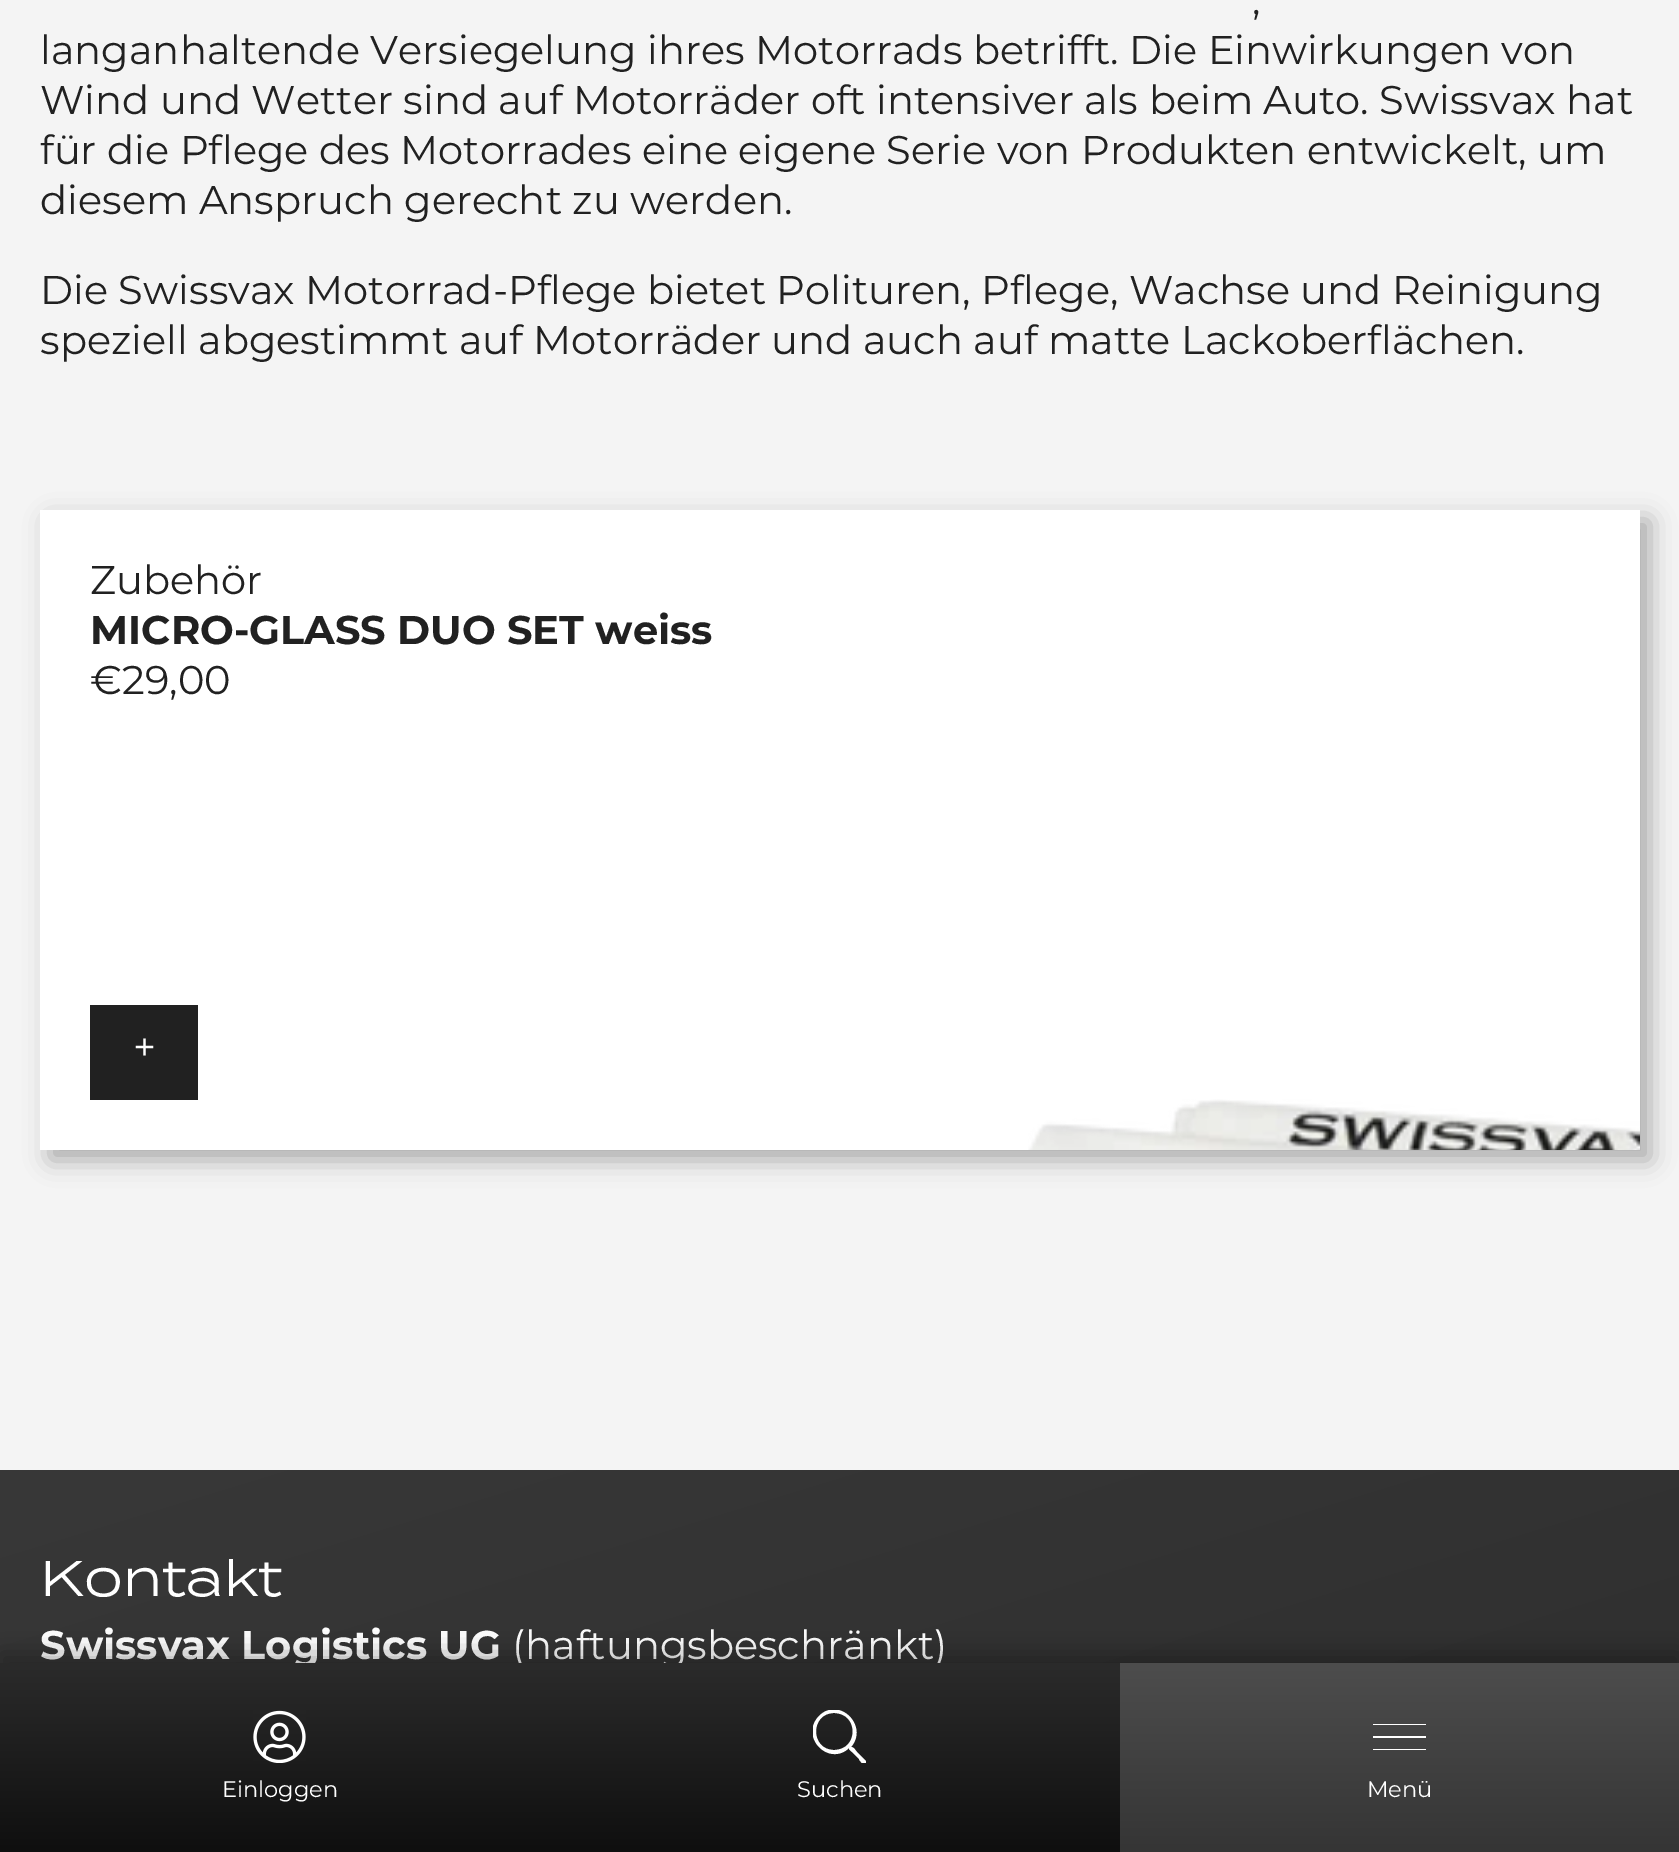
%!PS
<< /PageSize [1679 1852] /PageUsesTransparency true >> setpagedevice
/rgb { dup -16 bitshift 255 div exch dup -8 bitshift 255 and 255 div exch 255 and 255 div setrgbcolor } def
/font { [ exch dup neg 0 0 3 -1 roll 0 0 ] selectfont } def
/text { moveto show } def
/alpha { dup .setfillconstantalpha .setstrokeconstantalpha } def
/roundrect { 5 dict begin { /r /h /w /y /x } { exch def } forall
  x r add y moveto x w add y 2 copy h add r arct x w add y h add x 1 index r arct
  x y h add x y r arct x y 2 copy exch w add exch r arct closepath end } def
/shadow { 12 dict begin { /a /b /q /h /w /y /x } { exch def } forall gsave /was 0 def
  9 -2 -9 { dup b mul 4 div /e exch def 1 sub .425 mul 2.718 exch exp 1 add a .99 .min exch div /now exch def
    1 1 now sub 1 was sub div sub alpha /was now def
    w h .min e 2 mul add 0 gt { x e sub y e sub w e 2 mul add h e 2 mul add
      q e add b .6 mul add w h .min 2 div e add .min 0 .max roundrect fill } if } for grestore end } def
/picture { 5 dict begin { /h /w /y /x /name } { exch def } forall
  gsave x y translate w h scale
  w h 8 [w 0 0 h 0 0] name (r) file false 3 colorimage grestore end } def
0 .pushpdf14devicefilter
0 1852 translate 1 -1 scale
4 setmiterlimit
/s1 { /Montserrat-Regular 40 font 16#212121 rgb } def
/s2 { /Montserrat-Bold 40 font 16#212121 rgb } def
/s3 { /Montserrat-Regular 40 font 16#FFFFFF rgb } def
/s4 { /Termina-Regular 50 font 16#FFFFFF rgb } def
/s5 { /Montserrat-Bold 40 font 16#FFFFFF rgb } def
/s6 { /Montserrat-Regular 22.5 font 16#FFFFFF rgb } def
16#F4F4F4 rgb
0 0 1679 1852 rectfill
s1
(,) 1252 14 text
(langanhaltende Versiegelung ihres Motorrads betrifft. Die Einwirkungen von) 40 64 text
(Wind und Wetter sind auf Motorräder oft intensiver als beim Auto. Swissvax hat) 40 114 text
(für die Pflege des Motorrades eine eigene Serie von Produkten entwickelt, um) 40 164 text
(diesem Anspruch gerecht zu werden.) 40 214 text
(Die Swissvax Motorrad-Pflege bietet Polituren, Pflege, Wachse und Reinigung) 40 304 text
(speziell abgestimmt auf Motorräder und auch auf matte Lackoberflächen.) 40 354 text
16#000000 rgb
50 520 1600 640 0 12.5 0.3 shadow
16#FFFFFF rgb
40 510 1600 640 rectfill
s1
(Zubehör) 90 594 text
s2
(MICRO-GLASS DUO SET weiss) 90 644 text
s1
(€29,00) 90 694 text
90 1005 108 95 rectfill
s3
(+) 133 1061 text
(pic1.raw) 1028 1099 612 51 picture
gsave 0 1470 moveto 1679 1470 lineto 1679 1663 lineto 0 1663 lineto closepath clip newpath
<< /ShadingType 2 /ColorSpace /DeviceRGB /Coords [431 1338 1249 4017] /Extend [true true] /Function << /FunctionType 2 /Domain [0 1] /C0 [0.22 0.22 0.22] /C1 [0.09 0.09 0.09] /N 1 >> >> shfill grestore
s4
(Kontakt) 40 1596 text
s5
(Swissvax Logistics UG) 40 1659 text
s3
(\(haftungsbeschränkt\)) 512 1659 text
16#000000 rgb
0 1653 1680 190 0 12.5 0.3 shadow
gsave 0 1663 moveto 1120 1663 lineto 1120 1852 lineto 0 1852 lineto closepath clip newpath
<< /ShadingType 2 /ColorSpace /DeviceRGB /Coords [840 1663 840 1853] /Extend [true true] /Function << /FunctionType 2 /Domain [0 1] /C0 [0.169 0.169 0.169] /C1 [0.059 0.059 0.059] /N 1 >> >> shfill grestore
gsave 1120 1663 moveto 1679 1663 lineto 1679 1852 lineto 1120 1852 lineto closepath clip newpath
<< /ShadingType 2 /ColorSpace /DeviceRGB /Coords [840 1663 840 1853] /Extend [true true] /Function << /FunctionType 2 /Domain [0 1] /C0 [0.302 0.302 0.302] /C1 [0.208 0.208 0.208] /N 1 >> >> shfill grestore
(pic2.raw) 253 1710 53 53 picture
s6
(Einloggen) 222 1797 text
gsave
813 1710 55 53 rectclip
866 1761 moveto 857 1752 lineto 855 1750 854 1747 851 1747 curveto 869 1726 839 1696 819 1716 curveto 799 1737 829 1767 849 1748 curveto 849 1750 850 1750 852 1752 curveto 859 1759 lineto 859 1760 865 1768 866 1762 curveto closepath 834 1750 moveto 810 1750 810 1713 834 1713 curveto 859 1713 859 1750 834 1750 curveto closepath fill
grestore
(Suchen) 797 1797 text
1373 1724 53 1 rectfill
1373 1736 53 2 rectfill
1373 1749 53 1 rectfill
(Menü) 1367 1797 text
.poppdf14devicefilter showpage
